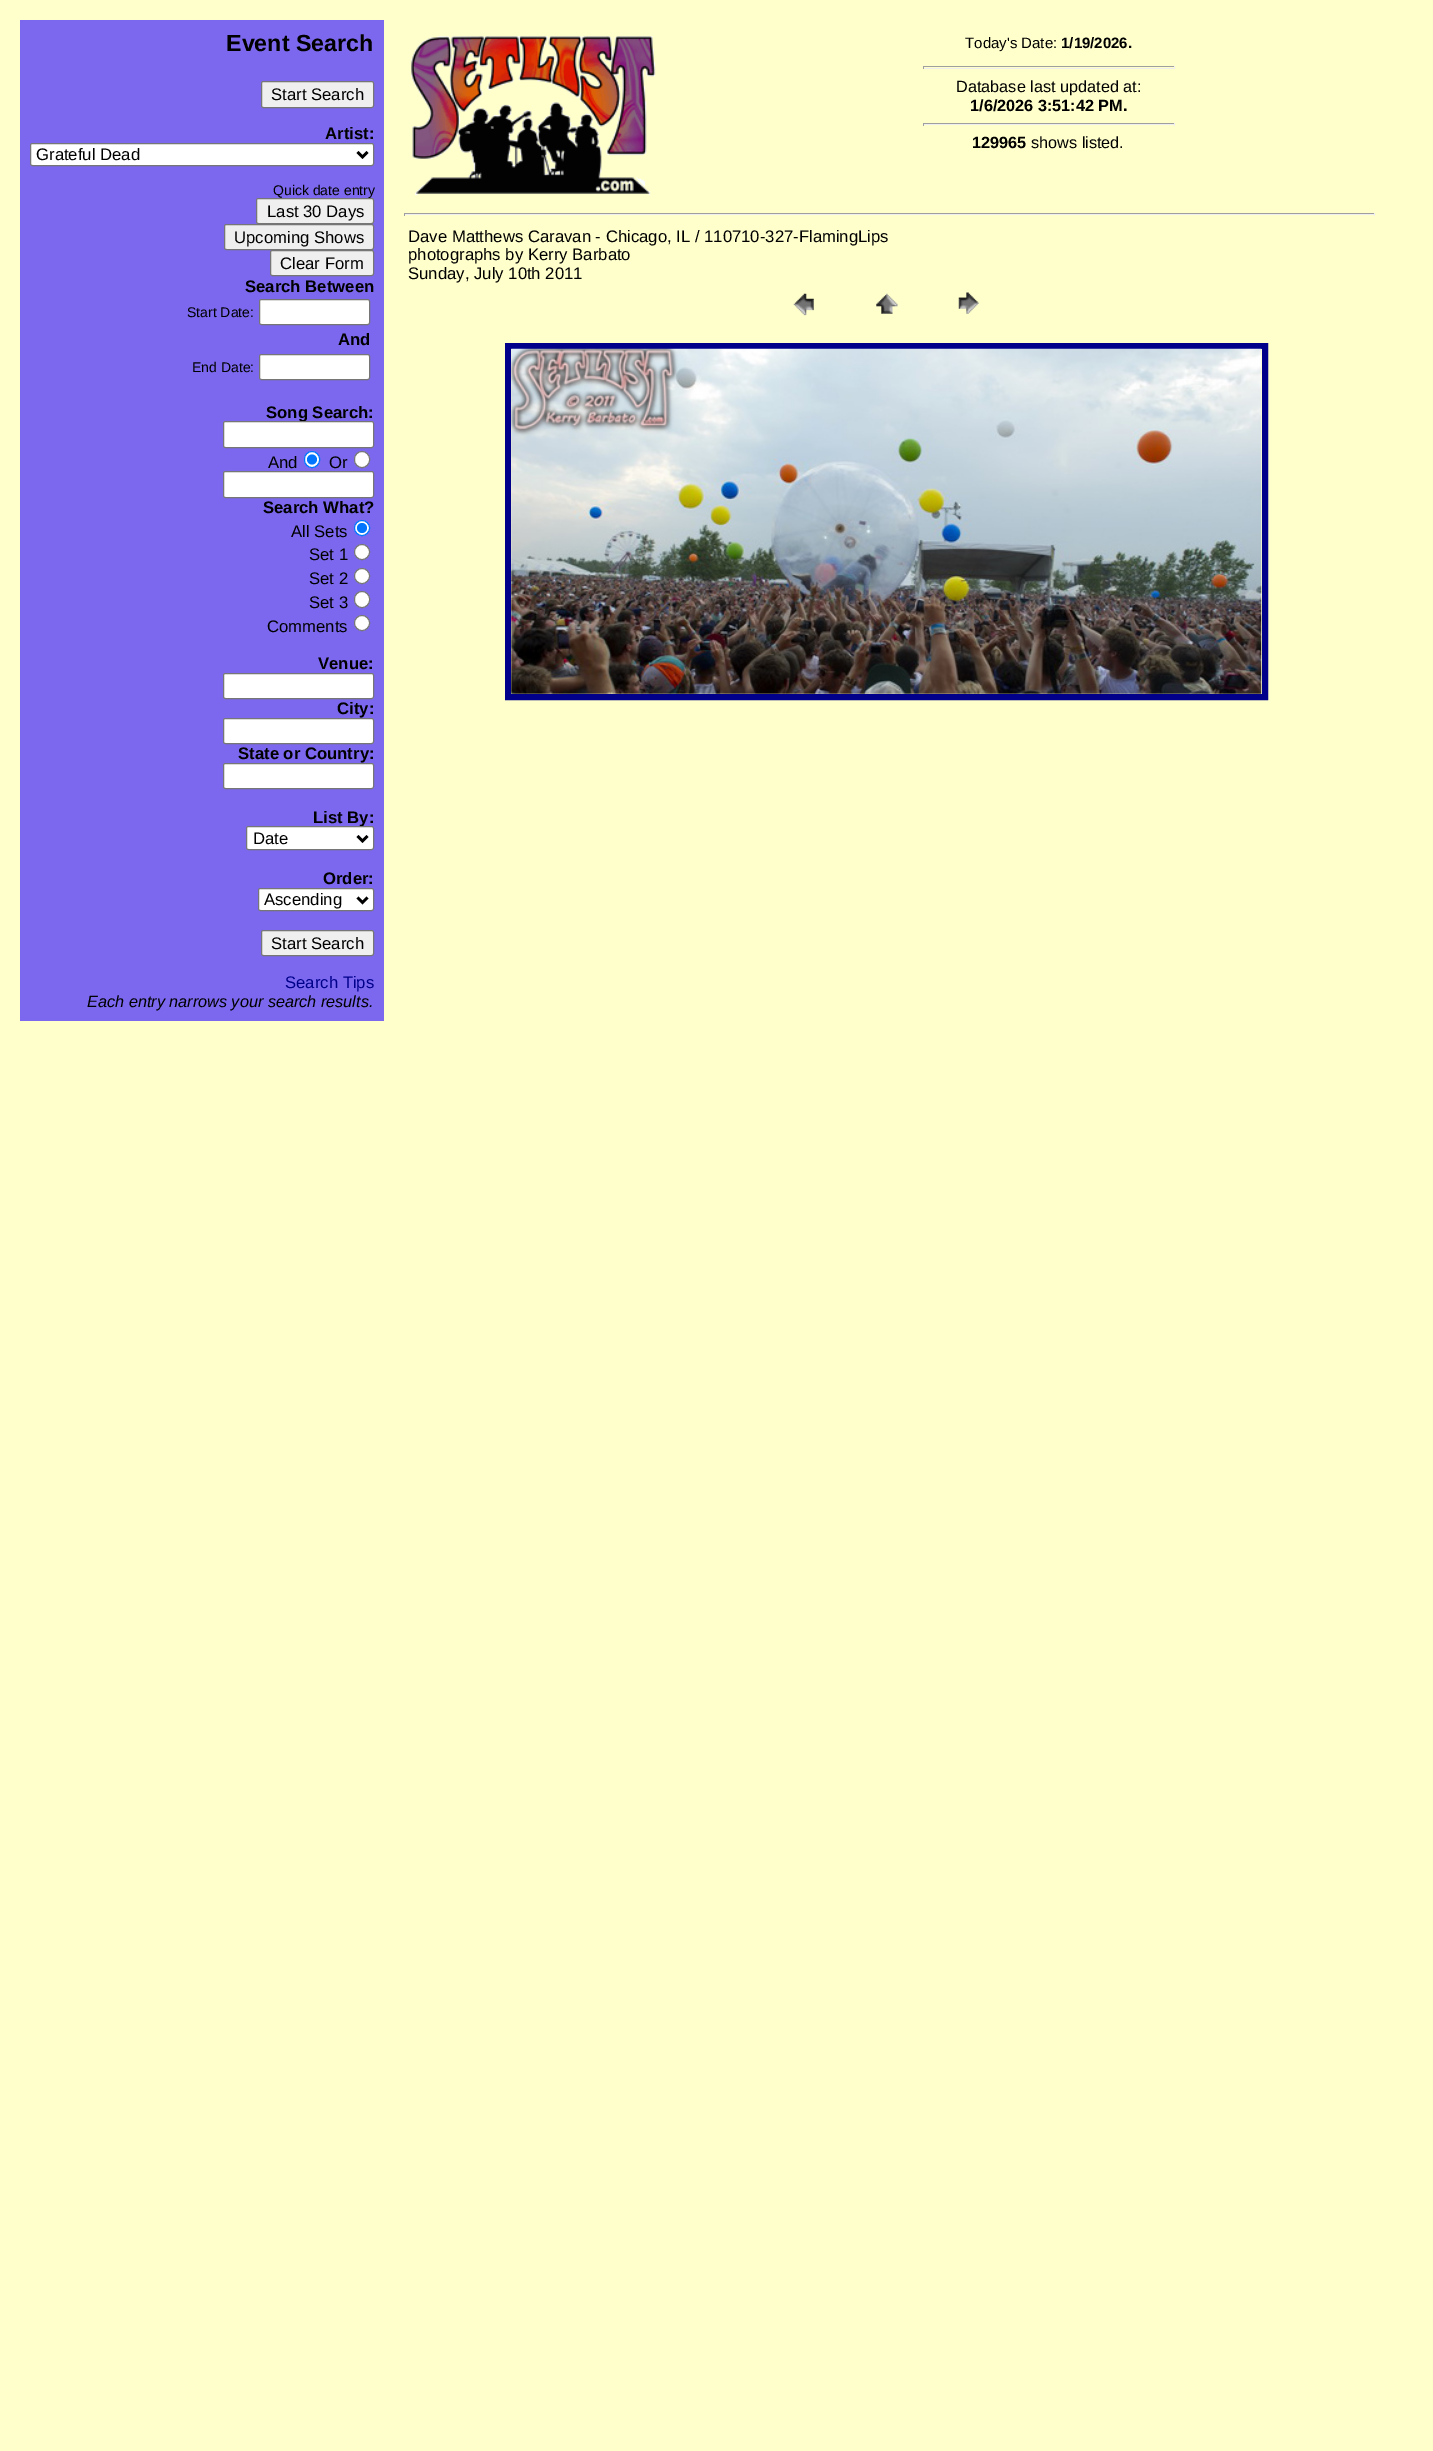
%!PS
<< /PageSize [1433 2451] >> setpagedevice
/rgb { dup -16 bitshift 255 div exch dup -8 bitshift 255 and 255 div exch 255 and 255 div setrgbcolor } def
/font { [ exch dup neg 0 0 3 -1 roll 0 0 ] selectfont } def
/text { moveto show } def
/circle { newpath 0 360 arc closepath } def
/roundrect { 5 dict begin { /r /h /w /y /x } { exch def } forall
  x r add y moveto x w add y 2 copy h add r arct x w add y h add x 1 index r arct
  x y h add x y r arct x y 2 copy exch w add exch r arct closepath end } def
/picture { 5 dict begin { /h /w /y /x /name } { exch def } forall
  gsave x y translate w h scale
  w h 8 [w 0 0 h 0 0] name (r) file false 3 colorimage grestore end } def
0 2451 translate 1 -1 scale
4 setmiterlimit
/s1 { /LiberationSans-Bold 23.25 font 16#000000 rgb } def
/s2 { /LiberationSans-Regular 16.7 font 16#000000 rgb } def
/s3 { /LiberationSans-Bold 16.7 font 16#000000 rgb } def
/s4 { /LiberationSans-Regular 14 font 16#000000 rgb } def
/s5 { /LiberationSans-Regular 16.7 font 16#00008B rgb } def
/s6 { /LiberationSans-Italic 16.25 font 16#000000 rgb } def
/s7 { /LiberationSans-Regular 15 font 16#000000 rgb } def
/s8 { /LiberationSans-Bold 15 font 16#000000 rgb } def
/s9 { /LiberationSans-Regular 16.25 font 16#000000 rgb } def
/s10 { /LiberationSans-Bold 16.25 font 16#000000 rgb } def
16#FFFFCC rgb
0 0 1433 2451 rectfill
16#7B68EE rgb
20 20 364 1001 rectfill
s1
(Event Search) 226 51 text
16#EFEFEF rgb
261.5 81.5 112 26 2 roundrect gsave fill grestore
16#767676 rgb
stroke
s2
(Start Search) 271 100 text
s3
(Artist:) 325 139 text
16#FFFFFF rgb
30.5 143.5 343 22 2 roundrect gsave fill grestore
16#767676 rgb
stroke
16#000000 rgb
2.5 setlinewidth
357.5 152 moveto 362.5 157 lineto 367.5 152 lineto stroke
s2
(Grateful Dead) 36 160 text
s4
(Quick date entry) 273 195 text
16#EFEFEF rgb
256.5 198.5 117 25 2 roundrect gsave fill grestore
16#767676 rgb
1 setlinewidth
stroke
s2
(Last 30 Days) 267 217 text
16#EFEFEF rgb
224.5 224.5 149 25 2 roundrect gsave fill grestore
16#767676 rgb
stroke
s2
(Upcoming Shows) 234 243 text
16#EFEFEF rgb
270.5 250.5 103 25 2 roundrect gsave fill grestore
16#767676 rgb
stroke
s2
(Clear Form) 280 269 text
s3
(Search Between) 245 292 text
s4
(Start Date:) 187 317 text
16#FFFFFF rgb
259.5 299.5 110 25 2 roundrect gsave fill grestore
16#767676 rgb
stroke
s3
(And) 338 345 text
s4
(End Date:) 192 372 text
16#FFFFFF rgb
259.5 354.5 110 25 2 roundrect gsave fill grestore
16#767676 rgb
stroke
s3
(Song Search:) 266 418 text
16#FFFFFF rgb
223.5 421.5 150 26 2 roundrect gsave fill grestore
16#767676 rgb
stroke
s2
(And) 268 468 text
16#FFFFFF rgb
304.5 451.5 15 16 7.5 roundrect gsave fill grestore
16#0075FF rgb
stroke
312 459.5 5 circle fill
s2
(Or) 329 468 text
16#FFFFFF rgb
354.5 451.5 15 16 7.5 roundrect gsave fill grestore
16#767676 rgb
stroke
16#FFFFFF rgb
223.5 471.5 150 26 2 roundrect gsave fill grestore
16#767676 rgb
stroke
s3
(Search What?) 263 513 text
s2
(All Sets) 291 537 text
16#FFFFFF rgb
362 528 7.5 circle gsave fill grestore
16#0075FF rgb
stroke
362 528 5 circle fill
s2
(Set 1) 309 560 text
16#FFFFFF rgb
362 552 7.5 circle gsave fill grestore
16#767676 rgb
stroke
s2
(Set 2) 309 584 text
16#FFFFFF rgb
362 576 7.5 circle gsave fill grestore
16#767676 rgb
stroke
s2
(Set 3) 309 608 text
16#FFFFFF rgb
354.5 591.5 15 16 7.5 roundrect gsave fill grestore
16#767676 rgb
stroke
s2
(Comments) 267 632 text
16#FFFFFF rgb
362 623 7.5 circle gsave fill grestore
16#767676 rgb
stroke
s3
(Venue:) 318 669 text
16#FFFFFF rgb
223.5 673.5 150 25 2 roundrect gsave fill grestore
16#767676 rgb
stroke
s3
(City:) 337 714 text
16#FFFFFF rgb
223.5 718.5 150 25 2 roundrect gsave fill grestore
16#767676 rgb
stroke
s3
(State or Country:) 238 759 text
16#FFFFFF rgb
223.5 763.5 150 25 2 roundrect gsave fill grestore
16#767676 rgb
stroke
s3
(List By:) 313 823 text
16#FFFFFF rgb
246.5 826.5 127 23 2 roundrect gsave fill grestore
16#767676 rgb
stroke
16#000000 rgb
2.5 setlinewidth
357.5 836 moveto 362.5 841 lineto 367.5 836 lineto stroke
s2
(Date) 253 844 text
s3
(Order:) 323 884 text
16#FFFFFF rgb
258.5 888.5 115 22 2 roundrect gsave fill grestore
16#767676 rgb
1 setlinewidth
stroke
16#000000 rgb
2.5 setlinewidth
357.5 897.5 moveto 362.5 902.5 lineto 367.5 897.5 lineto stroke
s2
(Ascending) 264 905 text
16#EFEFEF rgb
261.5 930.5 112 25 2 roundrect gsave fill grestore
16#767676 rgb
1 setlinewidth
stroke
s2
(Start Search) 271 949 text
s5
(Search Tips) 285 988 text
s6
(Each entry narrows your search results.) 87 1007 text
(pic1.raw) 411 36 245 160 picture
s7
(Today's Date:) 965 48 text
s8
(1/19/2026.) 1061 48 text
16#9F9F9F rgb
923 66 252 1 rectfill
16#EEEEEE rgb
1174 66 1 3 rectfill
923 68 252 1 rectfill
16#9F9F9F rgb
923 66 1 3 rectfill
s9
(Database last updated at:) 956 92 text
s10
(1/6/2026 3:51:42 PM.) 970 111 text
16#9F9F9F rgb
923 123 252 1 rectfill
16#EEEEEE rgb
1174 123 1 3 rectfill
923 124 252 1 rectfill
16#9F9F9F rgb
923 123 1 3 rectfill
s10
(129965) 972 148 text
s9
(shows listed.) 1031 148 text
16#9F9F9F rgb
404 213 971 1 rectfill
16#EEEEEE rgb
1374 213 1 3 rectfill
404 214 971 1 rectfill
16#9F9F9F rgb
404 213 1 3 rectfill
s2
(Dave Matthews Caravan - Chicago, IL / 110710-327-FlamingLips) 408 242 text
(photographs by Kerry Barbato) 408 260 text
(Sunday, July 10th 2011) 408 279 text
(pic2.raw) 793 293 21 23 picture
(pic3.raw) 876 293 22 21 picture
(pic4.raw) 958 292 21 22 picture
16#00008B rgb
6 setlinewidth
508 346 757 351 rectstroke
(pic5.raw) 511 348 751 346 picture
showpage
